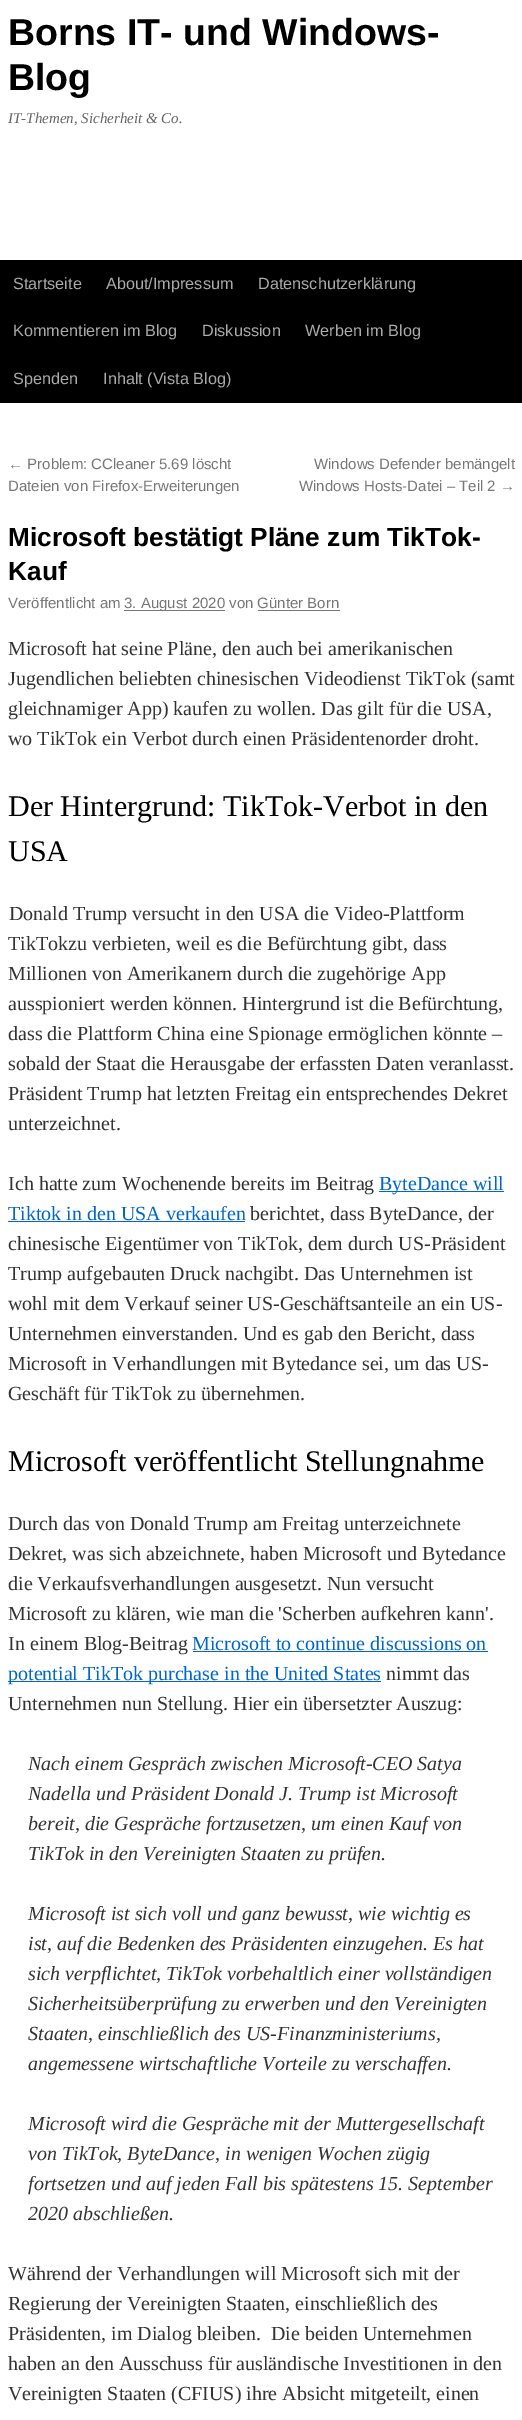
%!PS
<< /PageSize [522 2420] >> setpagedevice
/rgb { dup -16 bitshift 255 div exch dup -8 bitshift 255 and 255 div exch 255 and 255 div setrgbcolor } def
/font { [ exch dup neg 0 0 3 -1 roll 0 0 ] selectfont } def
/text { moveto show } def
0 2420 translate 1 -1 scale
4 setmiterlimit
/s1 { /LiberationSans-Bold 37.5 font 16#000000 rgb } def
/s2 { /LiberationSerif-Italic 15 font 16#666666 rgb } def
/s3 { /LiberationSans-Regular 16.25 font 16#AAAAAA rgb } def
/s4 { /LiberationSans-Regular 15 font 16#777777 rgb } def
/s5 { /LiberationSans-Bold 26.25 font 16#000000 rgb } def
/s6 { /LiberationSerif-Regular 20 font 16#333333 rgb } def
/s7 { /LiberationSerif-Regular 30 font 16#000000 rgb } def
/s8 { /LiberationSerif-Regular 20 font 16#0066CC rgb } def
/s9 { /LiberationSerif-Italic 20 font 16#333333 rgb } def
16#FFFFFF rgb
0 0 522 2420 rectfill
s1
(Borns IT- und Windows-) 8 45 text
(Blog) 8 90 text
s2
(IT-Themen, Sicherheit & Co.) 8 123 text
16#000000 rgb
0 260 522 143 rectfill
s3
(Startseite) 13 289 text
(About/Impressum) 106 289 text
(Datenschutzerklärung) 258 289 text
(Kommentieren im Blog) 13 336 text
(Diskussion) 202 336 text
(Werben im Blog) 305 336 text
(Spenden) 13 384 text
(Inhalt \(Vista Blog\)) 103 384 text
s4
(← Problem: CCleaner 5.69 löscht) 8 469 text
(Dateien von Firefox-Erweiterungen) 8 491 text
(Windows Defender bemängelt) 314 469 text
(Windows Hosts-Datei – Teil 2 →) 299 491 text
s5
(Microsoft bestätigt Pläne zum TikTok-) 8 546 text
(Kauf) 8 580 text
s4
(Veröffentlicht am) 8 608 text
124 610 101 1 rectfill
(3. August 2020 von Günter Born) 124 608 text
258 610 82 1 rectfill
s6
(Microsoft hat seine Pläne, den auch bei amerikanischen) 8 655 text
(Jugendlichen beliebten chinesischen Videodienst TikTok \(samt) 8 685 text
(gleichnamiger App\) kaufen zu wollen. Das gilt für die USA,) 8 715 text
(wo TikTok ein Verbot durch einen Präsidentenorder droht.) 8 745 text
s7
(Der Hintergrund: TikTok-Verbot in den) 8 816 text
(USA) 8 861 text
s6
(Donald Trump versucht in den USA die Video-Plattform) 9 920 text
(TikTokzu verbieten, weil es die Befürchtung gibt, dass) 8 950 text
(Millionen von Amerikanern durch die zugehörige App) 8 980 text
(ausspioniert werden können. Hintergrund ist die Befürchtung,) 8 1010 text
(dass die Plattform China eine Spionage ermöglichen könnte –) 8 1040 text
(sobald der Staat die Herausgabe der erfassten Daten veranlasst.) 8 1070 text
(Präsident Trump hat letzten Freitag ein entsprechendes Dekret) 8 1100 text
(unterzeichnet.) 8 1130 text
(Ich hatte zum Wochenende bereits im Beitrag) 8 1190 text
16#0066CC rgb
379 1191 125 1 rectfill
(ByteDance will) 379 1190 text
(Tiktok in den USA verkaufen) 8 1220 text
8 1221 237 1 rectfill
s6
(berichtet, dass ByteDance, der) 250 1220 text
(chinesische Eigentümer von TikTok, dem durch US-Präsident) 8 1250 text
(Trump aufgebauten Druck nachgibt. Das Unternehmen ist) 8 1280 text
(wohl mit dem Verkauf seiner US-Geschäftsanteile an ein US-) 8 1310 text
(Unternehmen einverstanden. Und es gab den Bericht, dass) 8 1340 text
(Microsoft in Verhandlungen mit Bytedance sei, um das US-) 8 1370 text
(Geschäft für TikTok zu übernehmen.) 8 1400 text
s7
(Microsoft veröffentlicht Stellungnahme) 8 1471 text
s6
(Durch das von Donald Trump am Freitag unterzeichnete) 8 1530 text
(Dekret, was sich abzeichnete, haben Microsoft und Bytedance) 8 1560 text
(die Verkaufsverhandlungen ausgesetzt. Nun versucht) 8 1590 text
(Microsoft zu klären, wie man die 'Scherben aufkehren kann'.) 8 1620 text
(In einem Blog-Beitrag) 8 1650 text
s8
(Microsoft to continue discussions on) 192 1650 text
193 1651 295 1 rectfill
8 1681 373 1 rectfill
(potential TikTok purchase in the United States) 8 1680 text
s6
(nimmt das) 386 1680 text
(Unternehmen nun Stellung. Hier ein übersetzter Auszug:) 8 1710 text
s9
(Nach einem Gespräch zwischen Microsoft-CEO Satya) 28 1770 text
(Nadella und Präsident Donald J. Trump ist Microsoft) 28 1800 text
(bereit, die Gespräche fortzusetzen, um einen Kauf von) 28 1830 text
(TikTok in den Vereinigten Staaten zu prüfen.) 28 1860 text
(Microsoft ist sich voll und ganz bewusst, wie wichtig es) 28 1920 text
(ist, auf die Bedenken des Präsidenten einzugehen. Es hat) 28 1950 text
(sich verpflichtet, TikTok vorbehaltlich einer vollständigen) 28 1980 text
(Sicherheitsüberprüfung zu erwerben und den Vereinigten) 28 2010 text
(Staaten, einschließlich des US-Finanzministeriums,) 28 2040 text
(angemessene wirtschaftliche Vorteile zu verschaffen.) 28 2070 text
(Microsoft wird die Gespräche mit der Muttergesellschaft) 28 2130 text
(von TikTok, ByteDance, in wenigen Wochen zügig) 28 2160 text
(fortsetzen und auf jeden Fall bis spätestens 15. September) 28 2190 text
(2020 abschließen.) 28 2220 text
s6
(Während der Verhandlungen will Microsoft sich mit der) 8 2280 text
(Regierung der Vereinigten Staaten, einschließlich des) 8 2310 text
(Präsidenten, im Dialog bleiben.  Die beiden Unternehmen) 8 2340 text
(haben an den Ausschuss für ausländische Investitionen in den) 8 2370 text
(Vereinigten Staaten \(CFIUS\) ihre Absicht mitgeteilt, einen) 8 2400 text
showpage
